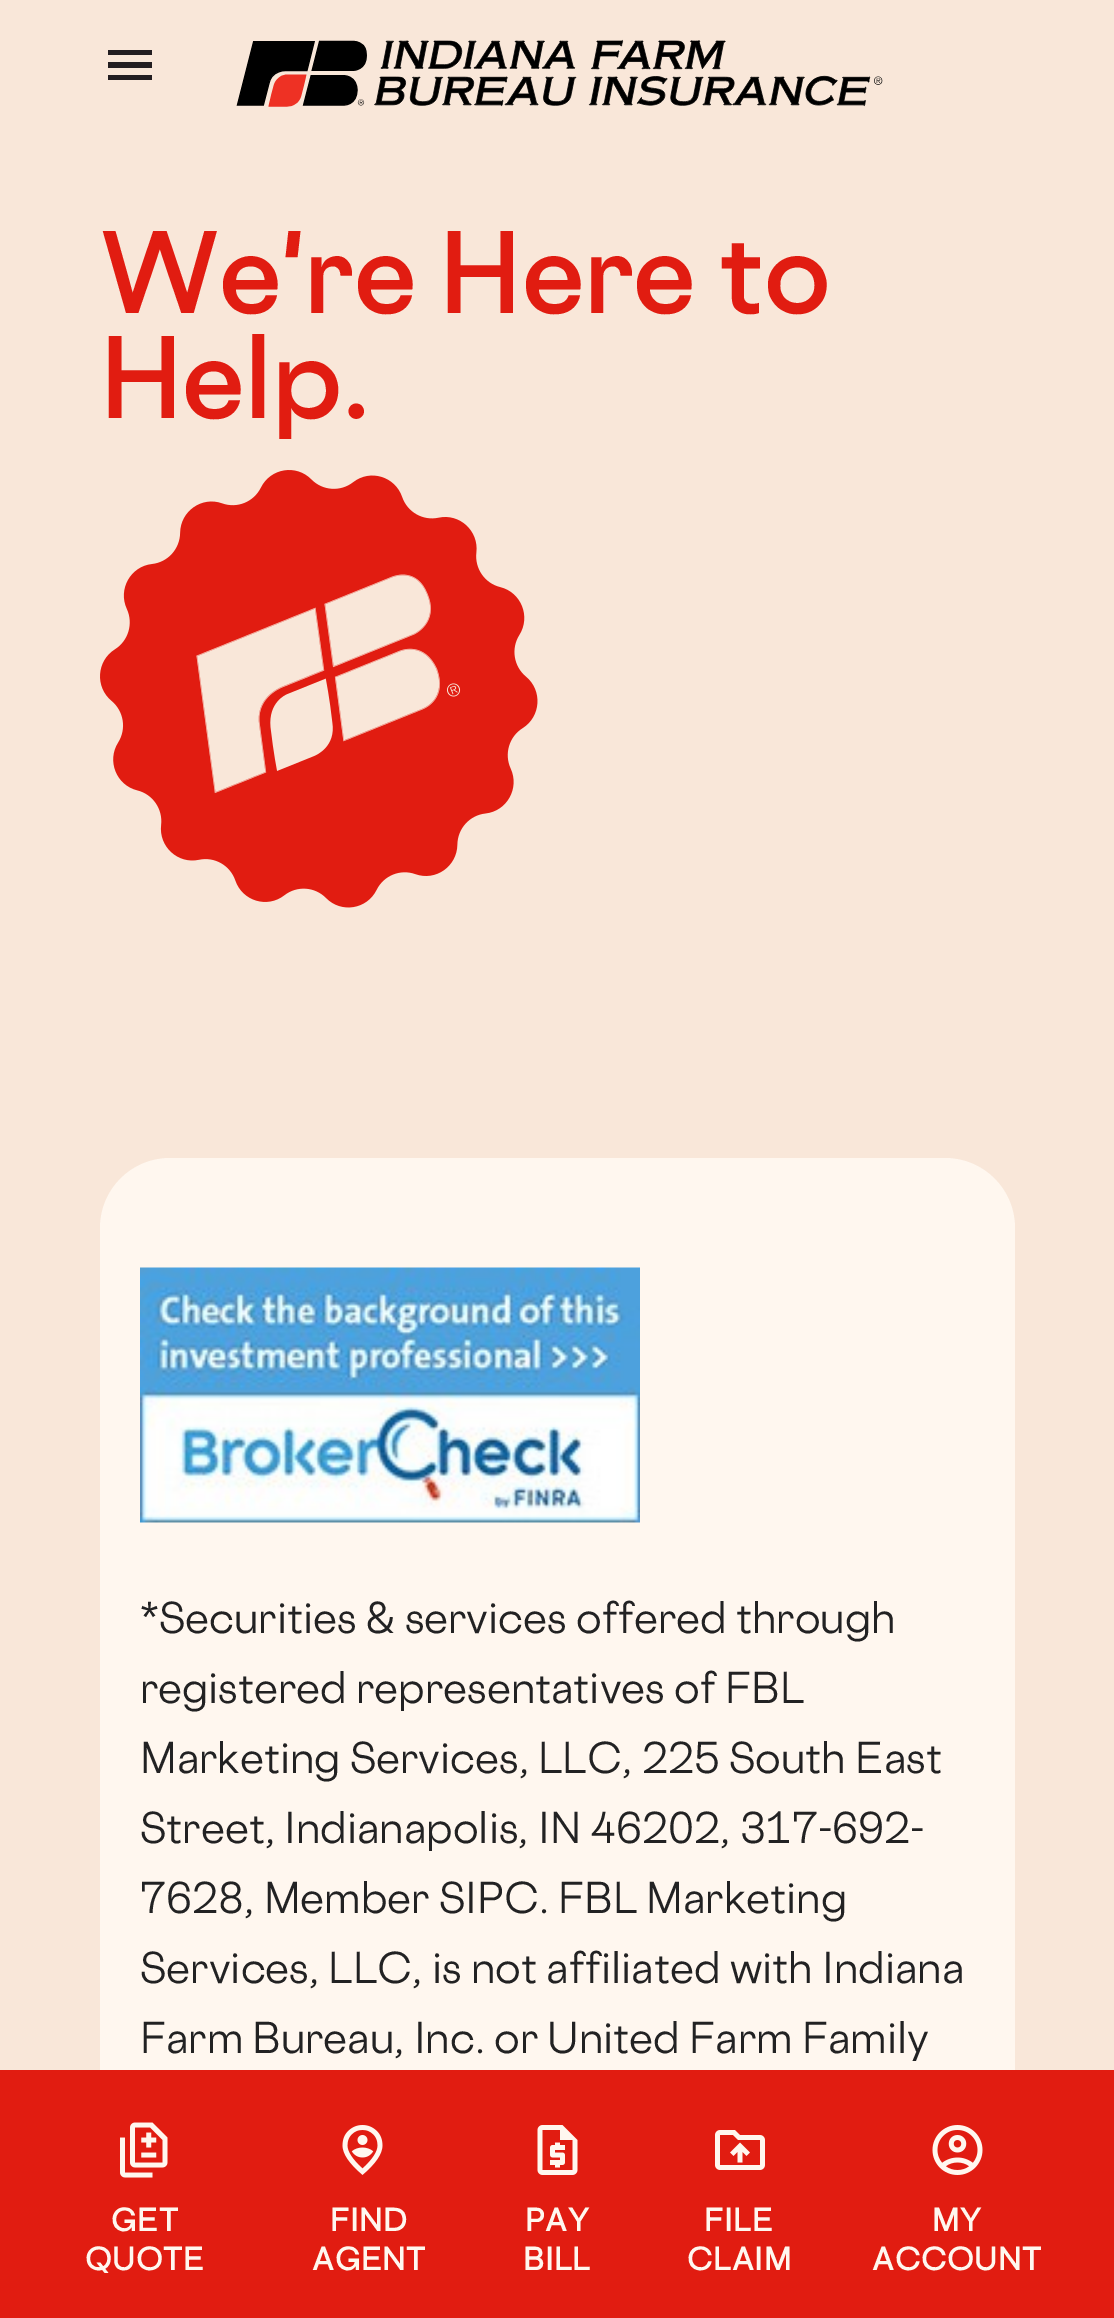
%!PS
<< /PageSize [1114 2318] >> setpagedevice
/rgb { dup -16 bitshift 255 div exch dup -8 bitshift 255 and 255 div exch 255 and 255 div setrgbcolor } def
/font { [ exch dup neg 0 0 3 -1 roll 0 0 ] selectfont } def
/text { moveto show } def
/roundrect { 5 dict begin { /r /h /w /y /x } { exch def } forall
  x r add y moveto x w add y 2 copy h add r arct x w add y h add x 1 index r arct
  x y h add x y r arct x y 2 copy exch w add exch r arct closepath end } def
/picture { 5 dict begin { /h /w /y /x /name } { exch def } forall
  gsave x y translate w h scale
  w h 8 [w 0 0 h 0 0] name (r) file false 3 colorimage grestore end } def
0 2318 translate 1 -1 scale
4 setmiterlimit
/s1 { /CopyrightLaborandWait-ExtraBold 40 font 16#222223 rgb } def
/s2 { /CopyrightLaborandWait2-ExtraBold 30 font 16#FFF7EF rgb } def
16#F9E7D9 rgb
0 0 1114 2318 rectfill
16#231E21 rgb
108 80 moveto 108 75 lineto 152 75 lineto 152 80 lineto closepath 108 68 moveto 108 62 lineto 152 62 lineto 152 68 lineto closepath 108 55 moveto 108 50 lineto 152 50 lineto 152 55 lineto closepath fill
(pic1.raw) 236 39 647 68 picture
/CopyrightLaborandWait2-ExtraBold 105 font
16#E11C11 rgb
100 313 moveto -0.6 0 (We're Here to) ashow
100 418 moveto -0.6 0 (Help.) ashow
(pic2.raw) 100 470 438 438 picture
16#FFF7EF rgb
100 1158 915 1095 70 roundrect fill
(pic3.raw) 140 1267 500 256 picture
s1
(*Securities & services offered through) 140 1633 text
(registered representatives of FBL) 140 1703 text
(Marketing Services, LLC, 225 South East) 140 1773 text
(Street, Indianapolis, IN 46202, 317-692-) 140 1843 text
(7628, Member SIPC. FBL Marketing) 140 1913 text
(Services, LLC, is not affiliated with Indiana) 140 1983 text
(Farm Bureau, Inc. or United Farm Family) 140 2053 text
16#E11C11 rgb
0 2070 1114 248 rectfill
(pic4.raw) 120 2122 48 56 picture
s2
(GET) 111 2231 text
(QUOTE) 85 2270 text
(pic5.raw) 342 2125 41 50 picture
(FIND) 330 2231 text
(AGENT) 312 2270 text
(pic6.raw) 537 2125 41 50 picture
(PAY) 525 2231 text
(BILL) 523 2270 text
(pic7.raw) 715 2130 50 40 picture
(FILE) 704 2231 text
(CLAIM) 687 2270 text
(pic8.raw) 932 2125 51 50 picture
(MY) 932 2231 text
(ACCOUNT) 872 2270 text
showpage
